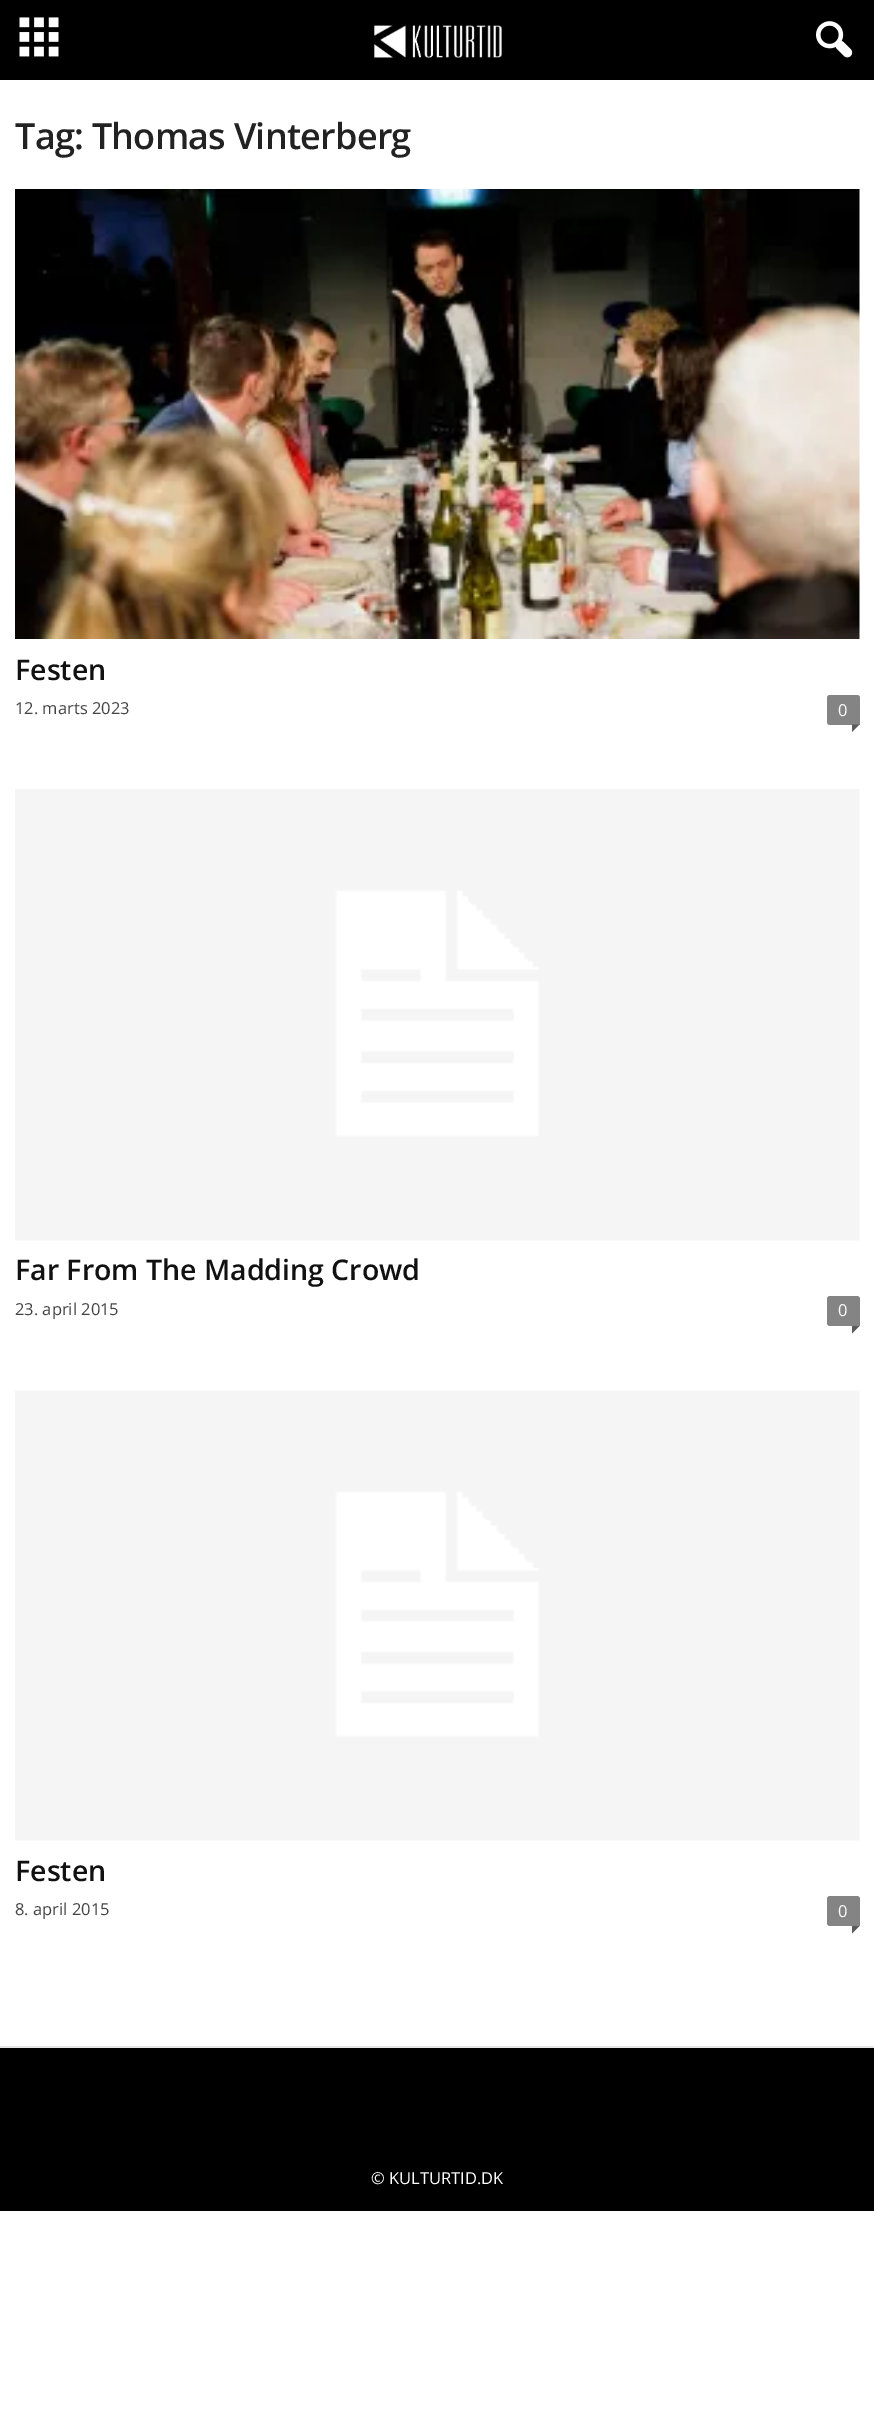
%!PS
<< /PageSize [874 2417] >> setpagedevice
/rgb { dup -16 bitshift 255 div exch dup -8 bitshift 255 and 255 div exch 255 and 255 div setrgbcolor } def
/font { [ exch dup neg 0 0 3 -1 roll 0 0 ] selectfont } def
/text { moveto show } def
/picture { 5 dict begin { /h /w /y /x /name } { exch def } forall
  gsave x y translate w h scale
  w h 8 [w 0 0 h 0 0] name (r) file false 3 colorimage grestore end } def
0 2417 translate 1 -1 scale
4 setmiterlimit
/s1 { /OpenSans-SemiBold 28.5 font 16#111111 rgb } def
/s2 { /OpenSans-Regular 16.5 font 16#444444 rgb } def
/s3 { /OpenSans-Regular 16.5 font 16#FFFFFF rgb } def
16#FFFFFF rgb
0 0 874 2417 rectfill
16#000000 rgb
0 0 874 80 rectfill
(pic1.raw) 19 17 40 40 picture
(pic2.raw) 374 25 128 33 picture
(pic3.raw) 816 21 37 37 picture
16#E6E6E6 rgb
0 2046 874 2 rectfill
/OpenSans-SemiBold 36 font
16#222222 rgb
15 149 moveto -0.75 0 (Tag: Thomas Vinterberg) ashow
(pic4.raw) 15 189 845 450 picture
s1
(Festen) 15 680 text
s2
(12. marts 2023) 15 714 text
16#848484 rgb
830 695 moveto 857 695 lineto 858.5 695 860 696.5 860 698 curveto 860 725 lineto 830 725 lineto 828.5 725 827 723.5 827 722 curveto 827 698 lineto 827 696.5 828.5 695 830 695 curveto closepath fill
s3
(0) 838 716 text
16#5B5B5B rgb
852 724.5 moveto 859.5 724.5 lineto 852 732 lineto closepath fill
(pic5.raw) 15 789 845 452 picture
s1
(Far From The Madding Crowd) 15 1280 text
s2
(23. april 2015) 15 1315 text
16#848484 rgb
830 1296 moveto 857 1296 lineto 858.5 1296 860 1297.5 860 1299 curveto 860 1326 lineto 830 1326 lineto 828.5 1326 827 1324.5 827 1323 curveto 827 1299 lineto 827 1297.5 828.5 1296 830 1296 curveto closepath fill
s3
(0) 838 1316 text
16#5B5B5B rgb
852 1326 moveto 859.5 1326 lineto 852 1333.5 lineto closepath fill
(pic6.raw) 15 1390 845 451 picture
s1
(Festen) 15 1881 text
s2
(8. april 2015) 15 1915 text
16#848484 rgb
830 1896 moveto 857 1896 lineto 858.5 1896 860 1897.5 860 1899 curveto 860 1926 lineto 830 1926 lineto 828.5 1926 827 1924.5 827 1923 curveto 827 1899 lineto 827 1897.5 828.5 1896 830 1896 curveto closepath fill
s3
(0) 838 1917 text
16#5B5B5B rgb
852 1926 moveto 859.5 1926 lineto 852 1933.5 lineto closepath fill
16#000000 rgb
0 2048 874 163 rectfill
s3
(© KULTURTID.DK) 371 2184 text
showpage
